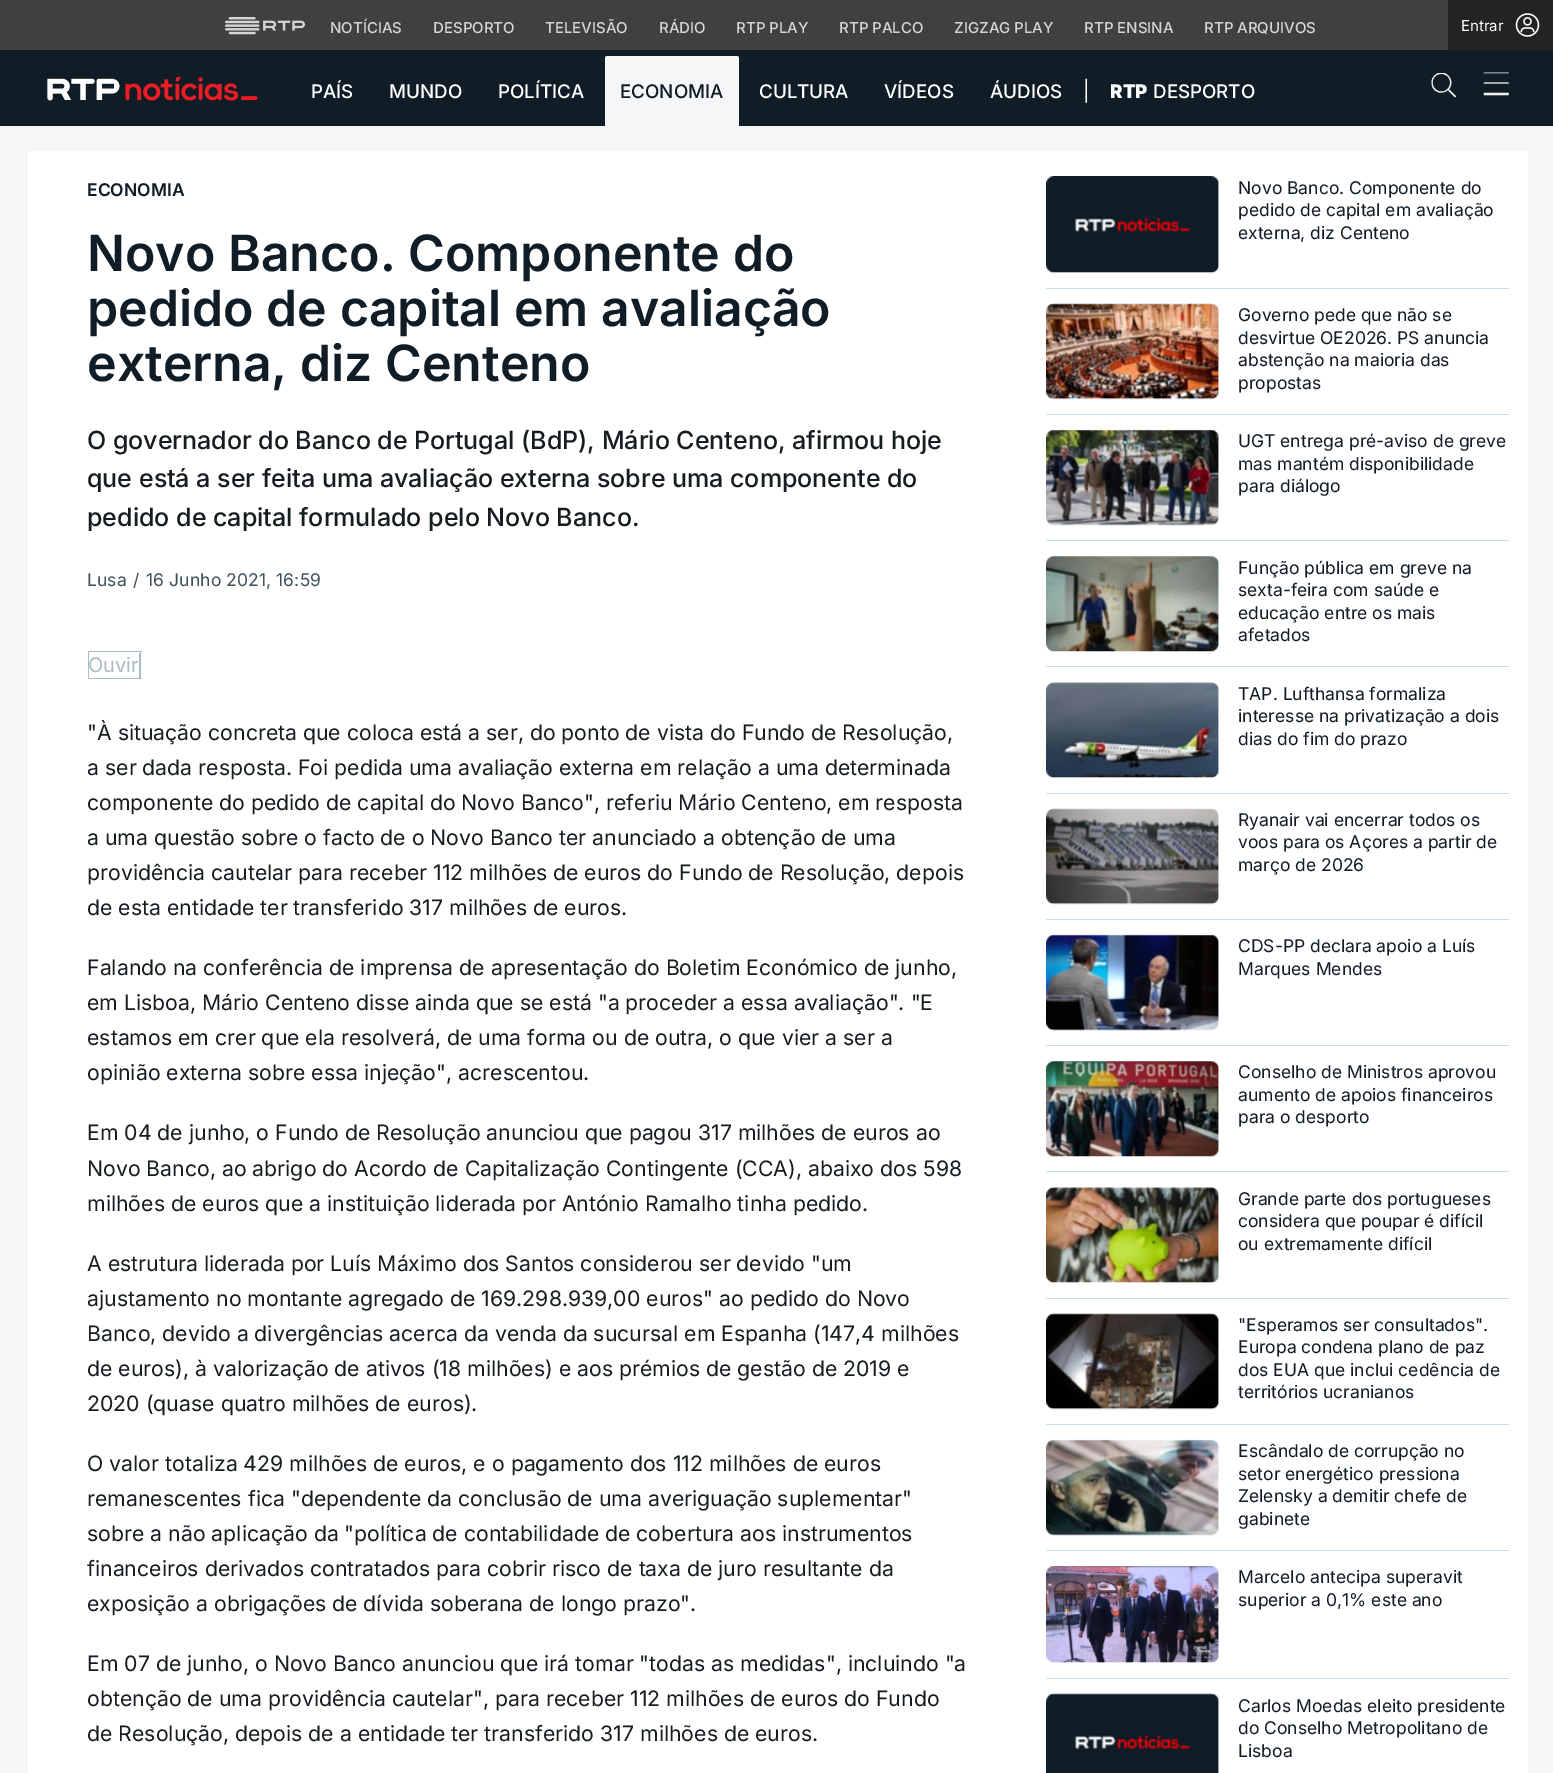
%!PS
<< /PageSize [1553 1773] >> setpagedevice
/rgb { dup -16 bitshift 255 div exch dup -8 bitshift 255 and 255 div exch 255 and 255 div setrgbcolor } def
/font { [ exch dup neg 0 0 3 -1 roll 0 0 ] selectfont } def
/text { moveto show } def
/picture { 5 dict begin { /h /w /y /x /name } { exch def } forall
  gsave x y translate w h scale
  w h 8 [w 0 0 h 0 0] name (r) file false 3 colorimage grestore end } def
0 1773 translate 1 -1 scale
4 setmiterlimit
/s1 { /Inter-Medium 15 font 16#D5D5D5 rgb } def
/s2 { /Inter-Regular 15 font 16#FFFFFF rgb } def
/s3 { /Inter-Medium 18.75 font 16#FFFFFF rgb } def
/s4 { /Inter-Medium 18.75 font 16#101C26 rgb } def
/s5 { /Inter-Regular 20 font 16#FFFFFF rgb } def
/s6 { /Inter-Black 18.75 font 16#FFFFFF rgb } def
/s7 { /Inter-SemiBold 17.5 font 16#101C26 rgb } def
/s8 { /Inter-SemiBold 50 font 16#101C26 rgb } def
/s9 { /Inter-Medium 25 font 16#151D20 rgb } def
/s10 { /Inter-Regular 20 font 16#A9BBC4 rgb } def
/s11 { /Inter-Regular 21.25 font 16#151D20 rgb } def
/s12 { /Inter-Regular 17.5 font 16#101C26 rgb } def
16#F5F6F8 rgb
0 0 1553 1773 rectfill
16#404040 rgb
0 0 1448 50 rectfill
(pic1.raw) 225 17 80 18 picture
s1
(NOTÍCIAS) 330 33 text
(DESPORTO) 433 33 text
(TELEVISÃO) 545 33 text
(RÁDIO) 659 33 text
(RTP PLAY) 736 33 text
(RTP PALCO) 839 33 text
(ZIGZAG PLAY) 954 33 text
(RTP ENSINA) 1084 33 text
(RTP ARQUIVOS) 1204 33 text
16#232323 rgb
1448 0 105 50 rectfill
s2
(Entrar) 1461 31 text
(pic2.raw) 1515 13 25 24 picture
16#101C26 rgb
0 50 1553 76 rectfill
(pic3.raw) 47 77 211 24 picture
s3
(PAÍS) 311 98 text
(MUNDO) 389 98 text
(POLÍTICA) 498 98 text
16#F4F6F7 rgb
607.5 56 moveto 736.5 56 lineto 738 56 739 57 739 58.5 curveto 739 126 lineto 605 126 lineto 605 58.5 lineto 605 57 606 56 607.5 56 curveto closepath fill
s4
(ECONOMIA) 620 98 text
s3
(CULTURA) 759 98 text
(VÍDEOS) 884 98 text
(ÁUDIOS) 990 98 text
s5
(|) 1083 98 text
s6
(RTP) 1110 98 text
s3
(DESPORTO) 1153 98 text
(pic4.raw) 1431 73 25 25 picture
(pic5.raw) 1483 72 26 24 picture
28 151 1500 1622 rectfill
s7
(ECONOMIA) 87 196 text
s8
(Novo Banco. Componente do) 87 271 text
(pedido de capital em avaliação) 87 326 text
(externa, diz Centeno) 87 381 text
s9
(O governador do Banco de Portugal \(BdP\), Mário Centeno, afirmou hoje) 87 449 text
(que está a ser feita uma avaliação externa sobre uma componente do) 87 487 text
(pedido de capital formulado pelo Novo Banco.) 87 526 text
/Inter-Regular 17.5 font
16#3E515C rgb
87 586 moveto 0.1 0 (Lusa) ashow
133 586 moveto 0.1 0 (/) ashow
146 586 moveto 0.1 0 (16 Junho 2021, 16:59) ashow
s10
(Ouvir) 88 672 text
88 651 54 1 rectfill
88 678 51 1 rectfill
88 651 1 28 rectfill
140 651 1 28 rectfill
139 678 3 1 rectfill
139 653 1 25 rectfill
s11
("À situação concreta que coloca está a ser, do ponto de vista do Fundo de Resolução,) 87 740 text
(a ser dada resposta. Foi pedida uma avaliação externa em relação a uma determinada) 87 775 text
(componente do pedido de capital do Novo Banco", referiu Mário Centeno, em resposta) 87 810 text
(a uma questão sobre o facto de o Novo Banco ter anunciado a obtenção de uma) 87 845 text
(providência cautelar para receber 112 milhões de euros do Fundo de Resolução, depois) 87 880 text
(de esta entidade ter transferido 317 milhões de euros.) 87 915 text
(Falando na conferência de imprensa de apresentação do Boletim Económico de junho,) 87 975 text
(em Lisboa, Mário Centeno disse ainda que se está "a proceder a essa avaliação". "E) 87 1010 text
(estamos em crer que ela resolverá, de uma forma ou de outra, o que vier a ser a) 87 1045 text
(opinião externa sobre essa injeção", acrescentou.) 87 1080 text
(Em 04 de junho, o Fundo de Resolução anunciou que pagou 317 milhões de euros ao) 87 1140 text
(Novo Banco, ao abrigo do Acordo de Capitalização Contingente \(CCA\), abaixo dos 598) 87 1176 text
(milhões de euros que a instituição liderada por António Ramalho tinha pedido.) 87 1211 text
(A estrutura liderada por Luís Máximo dos Santos considerou ser devido "um) 87 1271 text
(ajustamento no montante agregado de 169.298.939,00 euros" ao pedido do Novo) 87 1306 text
(Banco, devido a divergências acerca da venda da sucursal em Espanha \(147,4 milhões) 87 1341 text
(de euros\), à valorização de ativos \(18 milhões\) e aos prémios de gestão de 2019 e) 87 1376 text
(2020 \(quase quatro milhões de euros\).) 87 1411 text
(O valor totaliza 429 milhões de euros, e o pagamento dos 112 milhões de euros) 87 1471 text
(remanescentes fica "dependente da conclusão de uma averiguação suplementar") 87 1506 text
(sobre a não aplicação da "política de contabilidade de cobertura aos instrumentos) 87 1541 text
(financeiros derivados contratados para cobrir risco de taxa de juro resultante da) 87 1576 text
(exposição a obrigações de dívida soberana de longo prazo".) 87 1611 text
(Em 07 de junho, o Novo Banco anunciou que irá tomar "todas as medidas", incluindo "a) 87 1671 text
(obtenção de uma providência cautelar", para receber 112 milhões de euros do Fundo) 87 1706 text
(de Resolução, depois de a entidade ter transferido 317 milhões de euros.) 87 1741 text
16#C5DEE7 rgb
1046 288 463 1 rectfill
(pic6.raw) 1046 176 173 97 picture
s12
(Novo Banco. Componente do) 1238 194 text
(pedido de capital em avaliação) 1238 216 text
(externa, diz Centeno) 1238 239 text
16#C5DEE7 rgb
1046 414 463 1 rectfill
(pic7.raw) 1046 303 173 97 picture
s12
(Governo pede que não se) 1238 321 text
(desvirtue OE2026. PS anuncia) 1238 344 text
(abstenção na maioria das) 1238 366 text
(propostas) 1238 389 text
16#C5DEE7 rgb
1046 540 463 1 rectfill
(pic8.raw) 1046 429 173 97 picture
s12
(UGT entrega pré-aviso de greve) 1238 447 text
(mas mantém disponibilidade) 1238 470 text
(para diálogo) 1238 492 text
16#C5DEE7 rgb
1046 666 463 1 rectfill
(pic9.raw) 1046 556 173 96 picture
s12
(Função pública em greve na) 1238 574 text
(sexta-feira com saúde e) 1238 596 text
(educação entre os mais) 1238 619 text
(afetados) 1238 641 text
16#C5DEE7 rgb
1046 793 463 1 rectfill
(pic10.raw) 1046 682 173 96 picture
s12
(TAP. Lufthansa formaliza) 1238 700 text
(interesse na privatização a dois) 1238 722 text
(dias do fim do prazo) 1238 745 text
16#C5DEE7 rgb
1046 919 463 1 rectfill
(pic11.raw) 1046 808 173 97 picture
s12
(Ryanair vai encerrar todos os) 1238 826 text
(voos para os Açores a partir de) 1238 848 text
(março de 2026) 1238 871 text
16#C5DEE7 rgb
1046 1045 463 1 rectfill
(pic12.raw) 1046 934 173 97 picture
s12
(CDS-PP declara apoio a Luís) 1238 952 text
(Marques Mendes) 1238 975 text
16#C5DEE7 rgb
1046 1171 463 1 rectfill
(pic13.raw) 1046 1061 173 96 picture
s12
(Conselho de Ministros aprovou) 1238 1078 text
(aumento de apoios financeiros) 1238 1101 text
(para o desporto) 1238 1123 text
16#C5DEE7 rgb
1046 1298 463 1 rectfill
(pic14.raw) 1046 1187 173 96 picture
s12
(Grande parte dos portugueses) 1238 1205 text
(considera que poupar é difícil) 1238 1227 text
(ou extremamente difícil) 1238 1250 text
16#C5DEE7 rgb
1046 1424 463 1 rectfill
(pic15.raw) 1046 1313 173 97 picture
s12
("Esperamos ser consultados".) 1238 1331 text
(Europa condena plano de paz) 1238 1353 text
(dos EUA que inclui cedência de) 1238 1376 text
(territórios ucranianos) 1238 1398 text
16#C5DEE7 rgb
1046 1550 463 1 rectfill
(pic16.raw) 1046 1439 173 97 picture
s12
(Escândalo de corrupção no) 1238 1457 text
(setor energético pressiona) 1238 1480 text
(Zelensky a demitir chefe de) 1238 1502 text
(gabinete) 1238 1525 text
16#C5DEE7 rgb
1046 1678 463 1 rectfill
(pic17.raw) 1046 1566 173 97 picture
s12
(Marcelo antecipa superavit) 1238 1583 text
(superior a 0,1% este ano) 1238 1606 text
(pic18.raw) 1046 1693 173 80 picture
(Carlos Moedas eleito presidente) 1238 1712 text
(do Conselho Metropolitano de) 1238 1734 text
(Lisboa) 1238 1757 text
showpage
